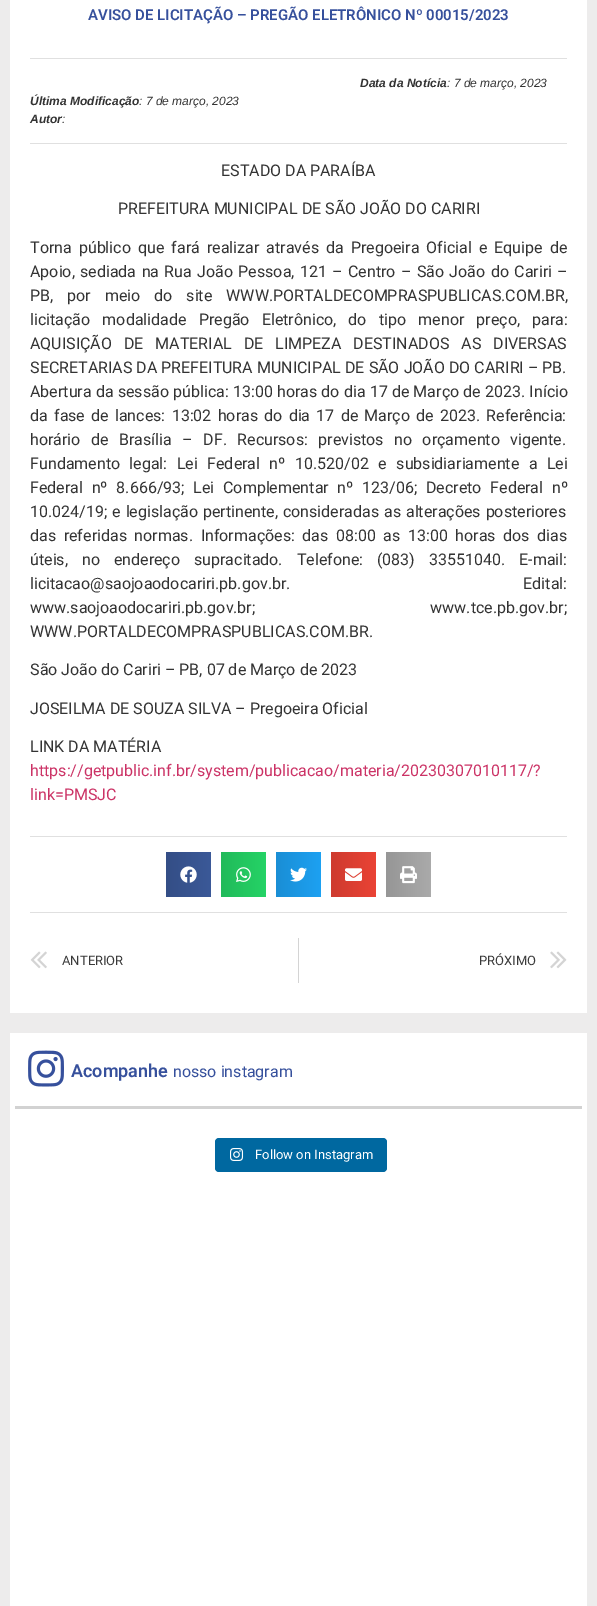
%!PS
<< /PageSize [597 1606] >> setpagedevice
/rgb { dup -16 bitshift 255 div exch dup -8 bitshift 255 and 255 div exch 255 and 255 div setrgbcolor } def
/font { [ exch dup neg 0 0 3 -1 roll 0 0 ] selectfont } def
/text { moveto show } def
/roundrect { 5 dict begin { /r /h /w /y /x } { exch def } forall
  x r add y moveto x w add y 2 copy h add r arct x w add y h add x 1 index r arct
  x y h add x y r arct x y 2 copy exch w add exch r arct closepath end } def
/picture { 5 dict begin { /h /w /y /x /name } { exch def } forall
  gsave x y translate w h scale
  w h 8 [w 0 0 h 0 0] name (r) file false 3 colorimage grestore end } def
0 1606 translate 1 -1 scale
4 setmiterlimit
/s1 { /Roboto-SemiBold 15 font 16#36509C rgb } def
/s2 { /LiberationSans-BoldItalic 12 font 16#333333 rgb } def
/s3 { /LiberationSans-Italic 12 font 16#333333 rgb } def
/s4 { /Roboto-Regular 16 font 16#333333 rgb } def
/s5 { /Roboto-Regular 16 font 16#CC3366 rgb } def
/s6 { /Roboto-Regular 13 font 16#3A3A3A rgb } def
/s7 { /Roboto-SemiBold 18 font 16#36509C rgb } def
/s8 { /Roboto-Regular 16 font 16#36509C rgb } def
/s9 { /Roboto-Regular 13 font 16#FFFFFF rgb } def
16#EDECEC rgb
0 0 597 1606 rectfill
16#FFFFFF rgb
10 0 577 1013 rectfill
s1
(AVISO DE LICITAÇÃO – PREGÃO ELETRÔNICO Nº 00015/2023) 88 20 text
16#E0E0E0 rgb
30 58 537 1 rectfill
s2
(Data da Notícia) 360 87 text
s3
(: 7 de março, 2023) 447 87 text
s2
(Última Modificação) 30 105 text
s3
(: 7 de março, 2023) 139 105 text
s2
(Autor) 30 123 text
s3
(:) 62 123 text
16#E0E0E0 rgb
30 143 537 1 rectfill
s4
(ESTADO DA PARAÍBA) 221 176 text
(PREFEITURA MUNICIPAL DE SÃO JOÃO DO CARIRI) 118 214 text
30 253 moveto 3.1 0 32 (Torna público que fará realizar através da Pregoeira Oficial e Equipe de) widthshow
30 277 moveto 1.4 0 32 (Apoio, sediada na Rua João Pessoa, 121 – Centro – São João do Cariri –) widthshow
30 301 moveto 10 0 32 (PB, por meio do site WWW.PORTALDECOMPRASPUBLICAS.COM.BR,) widthshow
30 325 moveto 8.25 0 32 (licitação modalidade Pregão Eletrônico, do tipo menor preço, para:) widthshow
30 349 moveto 8 0 32 (AQUISIÇÃO DE MATERIAL DE LIMPEZA DESTINADOS AS DIVERSAS) widthshow
30 373 moveto 0.1 0 32 (SECRETARIAS DA PREFEITURA MUNICIPAL DE SÃO JOÃO DO CARIRI – PB.) widthshow
30 397 moveto 0.25 0 32 (Abertura da sessão pública: 13:00 horas do dia 17 de Março de 2023. Início) widthshow
30 421 moveto 2.25 0 32 (da fase de lances: 13:02 horas do dia 17 de Março de 2023. Referência:) widthshow
30 445 moveto 6.5 0 32 (horário de Brasília – DF. Recursos: previstos no orçamento vigente.) widthshow
30 469 moveto 5.5 0 32 (Fundamento legal: Lei Federal nº 10.520/02 e subsidiariamente a Lei) widthshow
30 493 moveto 4.75 0 32 (Federal nº 8.666/93; Lei Complementar nº 123/06; Decreto Federal nº) widthshow
30 517 moveto 1 0 32 (10.024/19; e legislação pertinente, consideradas as alterações posteriores) widthshow
30 541 moveto 3.6 0 32 (das referidas normas. Informações: das 08:00 as 13:00 horas dos dias) widthshow
30 565 moveto 10 0 32 (úteis, no endereço supracitado. Telefone: \(083\) 33551040. E-mail:) widthshow
30 589 moveto 229 0 32 (licitacao@saojoaodocariri.pb.gov.br. Edital:) widthshow
30 613 moveto 171 0 32 (www.saojoaodocariri.pb.gov.br; www.tce.pb.gov.br;) widthshow
(WWW.PORTALDECOMPRASPUBLICAS.COM.BR.) 30 637 text
(São João do Cariri – PB, 07 de Março de 2023) 30 675 text
(JOSEILMA DE SOUZA SILVA – Pregoeira Oficial) 30 714 text
(LINK DA MATÉRIA) 30 752 text
s5
(https://getpublic.inf.br/system/publicacao/materia/20230307010117/?) 30 776 text
(link=PMSJC) 30 800 text
16#E0E0E0 rgb
30 836 537 1 rectfill
gsave 166 852 moveto 211 852 lineto 211 897 lineto 166 897 lineto closepath clip newpath
<< /ShadingType 2 /ColorSpace /DeviceRGB /Coords [166 875 211 875] /Extend [true true] /Function << /FunctionType 2 /Domain [0 1] /C0 [0.204 0.306 0.525] /C1 [0.231 0.349 0.596] /N 1 >> >> shfill grestore
(pic1.raw) 180 866 17 17 picture
gsave 221 852 moveto 266 852 lineto 266 897 lineto 221 897 lineto closepath clip newpath
<< /ShadingType 2 /ColorSpace /DeviceRGB /Coords [221 875 266 875] /Extend [true true] /Function << /FunctionType 2 /Domain [0 1] /C0 [0.129 0.729 0.353] /C1 [0.145 0.827 0.4] /N 1 >> >> shfill grestore
(pic2.raw) 236 867 15 15 picture
gsave 276 852 moveto 321 852 lineto 321 897 lineto 276 897 lineto closepath clip newpath
<< /ShadingType 2 /ColorSpace /DeviceRGB /Coords [276 875 321 875] /Extend [true true] /Function << /FunctionType 2 /Domain [0 1] /C0 [0.102 0.557 0.835] /C1 [0.114 0.631 0.949] /N 1 >> >> shfill grestore
(pic3.raw) 290 867 17 15 picture
gsave 331 852 moveto 376 852 lineto 376 897 lineto 331 897 lineto closepath clip newpath
<< /ShadingType 2 /ColorSpace /DeviceRGB /Coords [331 875 376 875] /Extend [true true] /Function << /FunctionType 2 /Domain [0 1] /C0 [0.808 0.231 0.184] /C1 [0.918 0.263 0.208] /N 1 >> >> shfill grestore
(pic4.raw) 345 868 17 13 picture
gsave 386 852 moveto 431 852 lineto 431 897 lineto 386 897 lineto closepath clip newpath
<< /ShadingType 2 /ColorSpace /DeviceRGB /Coords [386 875 431 875] /Extend [true true] /Function << /FunctionType 2 /Domain [0 1] /C0 [0.588 0.588 0.588] /C1 [0.667 0.667 0.667] /N 1 >> >> shfill grestore
(pic5.raw) 400 866 17 18 picture
30 912 537 1 rectfill
(pic6.raw) 30 951 17 18 picture
s6
(ANTERIOR) 62 965 text
16#D4D4D4 rgb
298 938 1 45 rectfill
s6
(PRÓXIMO) 479 965 text
(pic7.raw) 550 951 17 18 picture
16#FFFFFF rgb
10 1033 577 573 rectfill
16#D2D2D2 rgb
15 1106 567 3 rectfill
(pic8.raw) 28 1050 36 37 picture
s7
(Acompanhe) 71 1077 text
s8
(nosso instagram) 173 1077 text
16#0068A0 rgb
215 1138 172 34 4 roundrect fill
(pic9.raw) 230 1148 14 13 picture
s9
(Follow on Instagram) 255 1159 text
showpage
